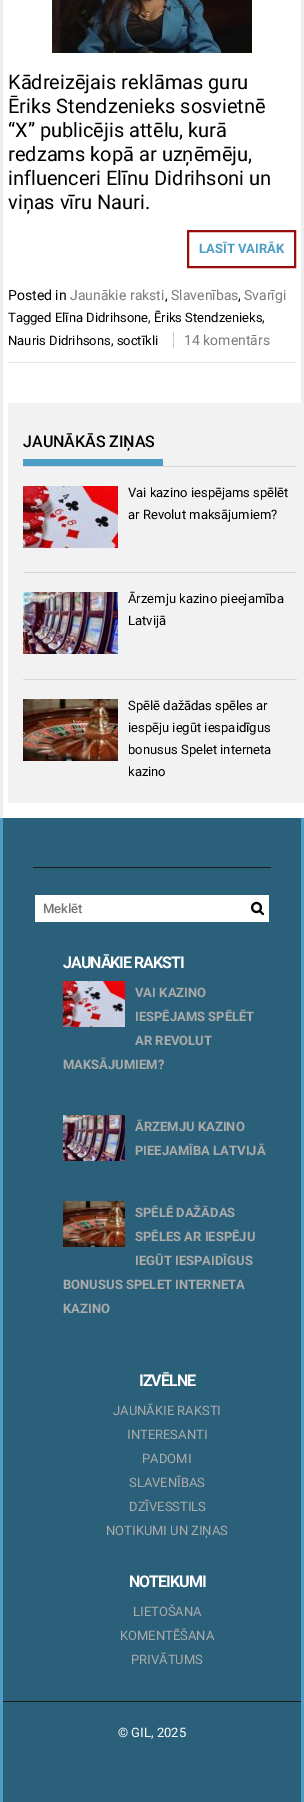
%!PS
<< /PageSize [304 1802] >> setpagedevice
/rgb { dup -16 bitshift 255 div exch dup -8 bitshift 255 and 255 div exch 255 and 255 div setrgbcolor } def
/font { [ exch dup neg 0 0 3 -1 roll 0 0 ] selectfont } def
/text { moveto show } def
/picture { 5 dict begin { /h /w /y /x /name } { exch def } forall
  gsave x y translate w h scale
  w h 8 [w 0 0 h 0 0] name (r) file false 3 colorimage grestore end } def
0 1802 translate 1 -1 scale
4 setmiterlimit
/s1 { /Roboto-Regular 20 font 16#000000 rgb } def
/s2 { /Roboto-Bold 13 font 16#4C9EC7 rgb } def
/s3 { /Roboto-Regular 14 font 16#000000 rgb } def
/s4 { /Roboto-Regular 14 font 16#7C7C7C rgb } def
/s5 { /Roboto-Regular 13 font 16#000000 rgb } def
/s6 { /Roboto-Medium 16 font 16#000000 rgb } def
/s7 { /Roboto-Medium 13 font 16#757575 rgb } def
/s8 { /Roboto-Bold 13 font 16#ABABAB rgb } def
/s9 { /Roboto-Regular 13 font 16#ABABAB rgb } def
/s10 { /Roboto-Regular 13 font 16#FFFFFF rgb } def
16#EEEEEF rgb
0 0 304 1802 rectfill
16#FFFFFF rgb
3 0 298 818 rectfill
16#E5E5E5 rgb
8 362 288 1 rectfill
(pic1.raw) 52 0 200 53 picture
s1
(Kādreizējais reklāmas guru) 8 89 text
(Ēriks Stendzenieks sosvietnē) 8 113 text
(“X” publicējis attēlu, kurā) 8 137 text
(redzams kopā ar uzņēmēju,) 8 161 text
(influenceri Elīnu Didrihsoni un) 8 185 text
(viņas vīru Nauri.) 8 209 text
16#9B0C0C rgb
2 setlinewidth
188 231 107 36 rectstroke
s2
(LASĪT VAIRĀK) 199 253 text
s3
(Posted in) 8 300 text
s4
(Jaunākie raksti) 70 300 text
s3
(,) 165 300 text
s4
(Slavenības) 171 300 text
s3
(,) 238 300 text
s4
(Svarīgi) 244 300 text
s5
(Tagged Elīna Didrihsone, Ēriks Stendzenieks,) 8 322 text
(Nauris Didrihsons, soctīkli) 8 345 text
s4
(14 komentārs) 184 345 text
16#CCCCCC rgb
173 332 1 16 rectfill
16#FFFFFF rgb
301 803 3 15 rectfill
16#F2F2F2 rgb
8 403 296 400 rectfill
16#D9D9D9 rgb
23 466 274 1 rectfill
s6
(JAUNĀKĀS ZIŅAS) 23 447 text
16#4C9EC7 rgb
23 459 140 7 rectfill
16#D9D9D9 rgb
23 572 274 1 rectfill
(pic2.raw) 23 486 95 62 picture
s5
(Vai kazino iespējams spēlēt) 128 497 text
(ar Revolut maksājumiem?) 128 519 text
16#D9D9D9 rgb
23 679 274 1 rectfill
(pic3.raw) 23 592 95 62 picture
s5
(Ārzemju kazino pieejamība) 128 603 text
(Latvijā) 128 625 text
(pic4.raw) 23 699 95 62 picture
(Spēlē dažādas spēles ar) 128 710 text
(iespēju iegūt iespaidīgus) 128 732 text
(bonusus Spelet interneta) 128 754 text
(kazino) 128 776 text
16#4C9EC7 rgb
0 818 304 984 rectfill
16#2B607A rgb
3 818 298 984 rectfill
16#1C1C1C rgb
33 867 238 1 rectfill
16#FFFFFF rgb
35 895 234 27 rectfill
s7
(Meklēt) 43 913 text
(pic5.raw) 251 901 13 15 picture
/Roboto-Bold 16 font
16#FFFFFF rgb
63 968 moveto -1 0 (JAUNĀKIE RAKSTI) ashow
(pic6.raw) 63 981 62 46 picture
s8
(VAI KAZINO) 135 997 text
(IESPĒJAMS SPĒLĒT) 135 1021 text
(AR REVOLUT) 135 1045 text
(MAKSĀJUMIEM?) 63 1069 text
(pic7.raw) 63 1115 62 46 picture
(ĀRZEMJU KAZINO) 135 1131 text
(PIEEJAMĪBA LATVIJĀ) 135 1155 text
(pic8.raw) 63 1201 62 46 picture
(SPĒLĒ DAŽĀDAS) 135 1217 text
(SPĒLES AR IESPĒJU) 135 1241 text
(IEGŪT IESPAIDĪGUS) 135 1265 text
(BONUSUS SPELET INTERNETA) 63 1289 text
(KAZINO) 63 1313 text
/Roboto-Bold 16 font
16#FFFFFF rgb
139 1386 moveto -1 0 (IZVĒLNE) ashow
s9
(JAUNĀKIE RAKSTI) 113 1415 text
(INTERESANTI) 127 1439 text
(PADOMI) 142 1463 text
(SLAVENĪBAS) 129 1487 text
(DZĪVESSTILS) 129 1511 text
(NOTIKUMI UN ZIŅAS) 106 1535 text
/Roboto-Bold 16 font
16#FFFFFF rgb
129 1587 moveto -1 0 (NOTEIKUMI) ashow
s9
(LIETOŠANA) 133 1616 text
(KOMENTĒŠANA) 120 1640 text
(PRIVĀTUMS) 131 1664 text
16#1C1C1C rgb
3 1701 298 1 rectfill
s10
(© GIL, 2025) 118 1737 text
showpage
